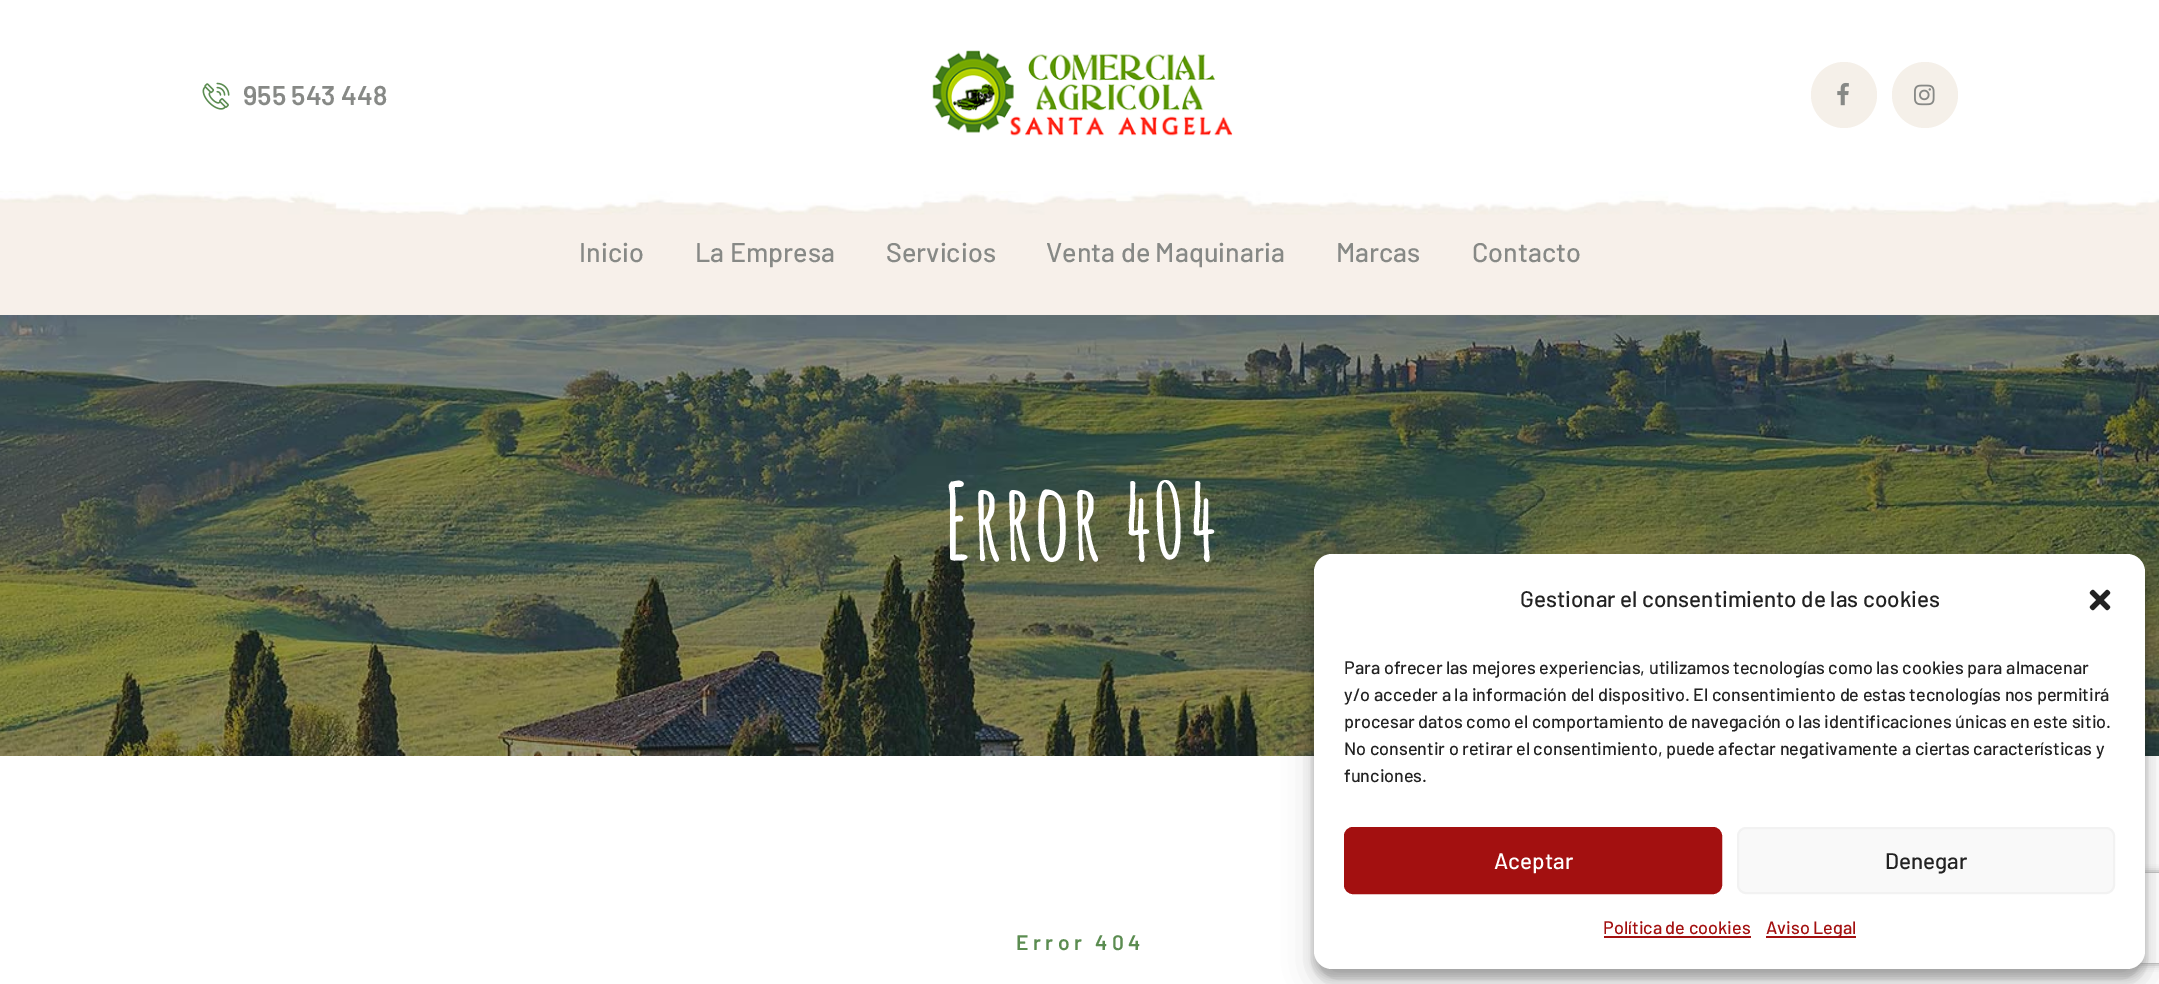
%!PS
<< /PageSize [2159 984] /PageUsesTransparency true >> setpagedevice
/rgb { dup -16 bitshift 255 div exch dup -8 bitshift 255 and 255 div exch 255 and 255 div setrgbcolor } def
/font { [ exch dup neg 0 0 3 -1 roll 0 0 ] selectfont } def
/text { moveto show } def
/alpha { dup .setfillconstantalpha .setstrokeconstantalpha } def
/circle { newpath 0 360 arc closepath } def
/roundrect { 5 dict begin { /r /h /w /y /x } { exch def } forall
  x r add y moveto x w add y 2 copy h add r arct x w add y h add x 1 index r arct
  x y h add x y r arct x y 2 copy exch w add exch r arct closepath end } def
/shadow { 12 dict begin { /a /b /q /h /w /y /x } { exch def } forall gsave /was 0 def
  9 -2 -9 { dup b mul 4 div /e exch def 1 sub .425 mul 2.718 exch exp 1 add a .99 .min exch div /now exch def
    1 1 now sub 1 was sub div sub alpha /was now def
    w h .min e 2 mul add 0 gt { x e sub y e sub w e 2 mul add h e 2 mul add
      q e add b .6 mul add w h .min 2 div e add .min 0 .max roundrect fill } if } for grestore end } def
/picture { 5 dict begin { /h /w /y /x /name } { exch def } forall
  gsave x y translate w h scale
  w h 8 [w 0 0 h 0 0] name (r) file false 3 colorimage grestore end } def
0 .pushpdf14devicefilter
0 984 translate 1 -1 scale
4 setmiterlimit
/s1 { /Barlow-SemiBold 27 font 16#878986 rgb } def
/s2 { /Barlow-Medium 27 font 16#878986 rgb } def
/s3 { /Barlow-Medium 22.5 font 16#222222 rgb } def
/s4 { /Barlow-Medium 18 font 16#222222 rgb } def
/s5 { /Barlow-Medium 22.5 font 16#FFFFFF rgb } def
/s6 { /Barlow-Medium 18 font 16#A31010 rgb } def
16#FFFFFF rgb
0 0 2159 984 rectfill
(pic1.raw) 202 82 28 28 picture
s1
(955 543 448) 243 105 text
(pic2.raw) 932 50 301 86 picture
16#F5F0E9 rgb
1844 95 33 circle fill
(pic3.raw) 1837 82 12 24 picture
1925 95 33 circle fill
(pic4.raw) 1914 84 21 22 picture
(pic5.raw) 0 191 2159 124 picture
s2
(Inicio) 579 262 text
(La Empresa) 695 262 text
(Servicios) 886 262 text
(Venta de Maquinaria) 1046 262 text
(Marcas) 1336 262 text
(Contacto) 1472 262 text
(pic6.raw) 0 315 2159 441 picture
/AmaticSC-Bold 105 font
16#FFFFFF rgb
943 560 moveto -0.25 0 (Error 404) ashow
/Barlow-SemiBold 21 font
16#5B8C51 rgb
1016 950 moveto 4.5 0 (Error 404) ashow
16#000000 rgb
1314 563 831 415 18 4.5 0.23 shadow
1314 569 831 415 18 15 0.19 shadow
gsave
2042 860 moveto 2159 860 lineto 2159 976 lineto 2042 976 lineto closepath 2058 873 moveto 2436 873 lineto 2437.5 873 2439 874.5 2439 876 curveto 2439 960 lineto 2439 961.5 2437.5 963 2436 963 curveto 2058 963 lineto 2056.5 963 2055 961.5 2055 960 curveto 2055 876 lineto 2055 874.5 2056.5 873 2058 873 curveto closepath eoclip newpath
16#808080 rgb
2055 873 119 90 3 4 1 shadow
grestore
16#FFFFFF rgb
1314 554 831 415 18 roundrect fill
s3
(Gestionar el consentimiento de las cookies) 1520 607 text
(pic7.raw) 2089 589 22 22 picture
s4
(Para ofrecer las mejores experiencias, utilizamos tecnologías como las cookies para almacenar) 1344 674 text
(y/o acceder a la información del dispositivo. El consentimiento de estas tecnologías nos permitirá) 1344 701 text
(procesar datos como el comportamiento de navegación o las identificaciones únicas en este sitio.) 1344 728 text
(No consentir o retirar el consentimiento, puede afectar negativamente a ciertas características y) 1344 755 text
(funciones.) 1344 782 text
16#A31010 rgb
1345 828 376 65 8 roundrect gsave fill grestore
2 setlinewidth
stroke
s5
(Aceptar) 1494 869 text
16#F9F9F9 rgb
1738 828 376 65 8 roundrect gsave fill grestore
16#F2F2F2 rgb
stroke
s3
(Denegar) 1885 869 text
s6
(Política de cookies) 1603 934 text
1604 936 147 2 rectfill
1766 936 90 2 rectfill
(Aviso Legal) 1766 934 text
.poppdf14devicefilter showpage
